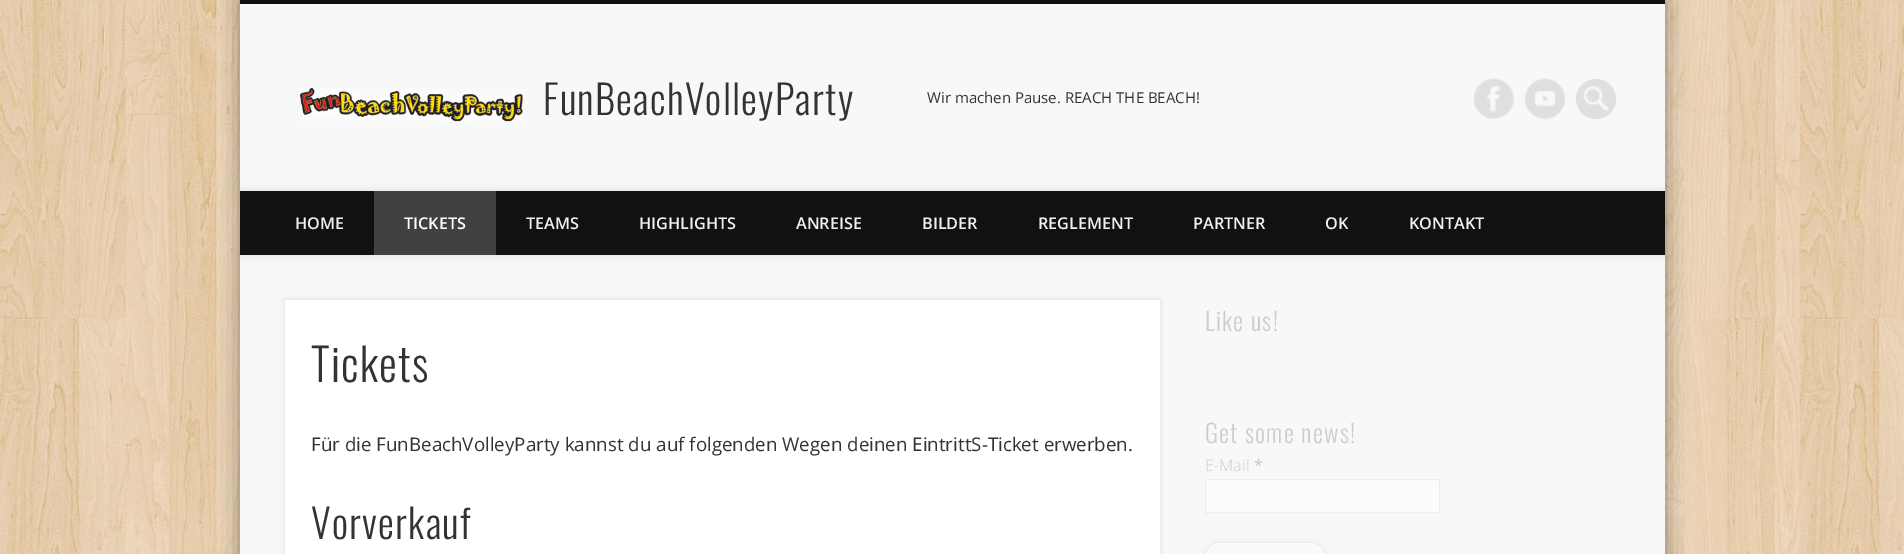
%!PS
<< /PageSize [1904 554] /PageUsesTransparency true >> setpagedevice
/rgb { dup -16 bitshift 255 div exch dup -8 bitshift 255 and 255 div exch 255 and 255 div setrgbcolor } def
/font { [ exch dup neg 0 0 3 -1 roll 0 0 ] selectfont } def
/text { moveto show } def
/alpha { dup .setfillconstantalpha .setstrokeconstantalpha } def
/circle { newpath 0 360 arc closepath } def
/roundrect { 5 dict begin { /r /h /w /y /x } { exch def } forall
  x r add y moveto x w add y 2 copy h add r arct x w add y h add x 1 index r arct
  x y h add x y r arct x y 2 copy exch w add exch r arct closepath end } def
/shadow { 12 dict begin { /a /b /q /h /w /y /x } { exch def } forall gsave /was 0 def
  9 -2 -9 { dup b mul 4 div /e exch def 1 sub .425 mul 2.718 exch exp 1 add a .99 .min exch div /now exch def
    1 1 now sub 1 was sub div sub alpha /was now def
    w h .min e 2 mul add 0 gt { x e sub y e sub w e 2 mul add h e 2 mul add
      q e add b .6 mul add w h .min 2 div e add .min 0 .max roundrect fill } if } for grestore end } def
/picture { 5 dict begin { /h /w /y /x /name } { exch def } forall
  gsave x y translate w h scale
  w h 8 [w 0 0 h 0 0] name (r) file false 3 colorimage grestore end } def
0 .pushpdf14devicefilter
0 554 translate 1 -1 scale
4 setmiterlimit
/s1 { /OpenSans-Regular 15 font 16#333333 rgb } def
/s2 { /OpenSans-SemiBold 16.25 font 16#F0F0F0 rgb } def
/s3 { /OpenSans-SemiBold 16.25 font 16#FFFFFF rgb } def
/s4 { /OpenSans-Regular 18.75 font 16#333333 rgb } def
/s5 { /OpenSans-Light 16.25 font 16#CCCCCC rgb } def
/s6 { /OpenSans-SemiBold 16.25 font 16#CCCCCC rgb } def
16#FFFFFF rgb
0 0 1904 554 rectfill
(pic1.raw) 0 0 1904 554 picture
16#000000 rgb
240 0 1425 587 0 11 0.4 shadow
16#F8F8F8 rgb
240 4 1425 550 rectfill
16#111111 rgb
240 0 1425 4 rectfill
(pic2.raw) 300 88 223 34 picture
/Oswald-Light 40 font
16#333333 rgb
543 115 moveto 1.25 0 (FunBeachVolleyParty) ashow
s1
(Wir machen Pause. REACH THE BEACH!) 927 103 text
(pic3.raw) 1474 78 40 41 picture
(pic4.raw) 1525 78 40 41 picture
16#DFDFDF rgb
1596 99 20 circle fill
(pic5.raw) 1583 86 26 25 picture
gsave
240 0 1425 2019 rectclip
16#000000 rgb
240 191 1425 64 0 4.5 0.1 shadow
grestore
16#111111 rgb
240 191 1425 64 rectfill
s2
(HOME) 295 229 text
16#414141 rgb
374 191 122 64 rectfill
s3
(TICKETS) 404 229 text
s2
(TEAMS) 526 229 text
(HIGHLIGHTS) 639 229 text
(ANREISE) 796 229 text
(BILDER) 922 229 text
(REGLEMENT) 1038 229 text
(PARTNER) 1193 229 text
(OK) 1325 229 text
(KONTAKT) 1409 229 text
16#000000 rgb
285 300 875 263 0 3 0.1 shadow
16#FFFFFF rgb
285 300 875 254 rectfill
/Oswald-Light 45 font
16#333333 rgb
311 382 moveto 1.25 0 (Tickets) ashow
s4
(Für die FunBeachVolleyParty kannst du auf folgenden Wegen deinen EintrittS-Ticket erwerben.) 311 451 text
/Oswald-Light 40 font
311 539 moveto 1.25 0 (Vorverkauf) ashow
/Oswald-Light 25 font
16#CCCCCC rgb
1205 331 moveto 1.25 0 (Like us!) ashow
1205 443 moveto 1.25 0 (Get some news!) ashow
s5
(E-Mail) 1205 471 text
s6
(*) 1254 471 text
16#FCFCFC rgb
1205.5 479.5 moveto 1439.5 479.5 lineto 1439.5 512.5 lineto 1205.5 512.5 lineto closepath gsave fill grestore
16#EEEEEE rgb
stroke
16#000000 rgb
1205 543 120 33 16.5 3 0.1 shadow
gsave
1205 543 120 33 16.5 roundrect clip newpath
gsave 1221.5 543 moveto 1308.5 543 lineto 1317.5 543 1325 550.5 1325 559.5 curveto 1325 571 lineto 1205 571 lineto 1205 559.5 lineto 1205 550.5 1212.5 543 1221.5 543 curveto closepath clip newpath
<< /ShadingType 2 /ColorSpace /DeviceRGB /Coords [1265 543 1265 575] /Extend [true true] /Function << /FunctionType 2 /Domain [0 1] /C0 [0.988 0.988 0.988] /C1 [0.953 0.953 0.953] /N 1 >> >> shfill grestore
grestore
.poppdf14devicefilter showpage
